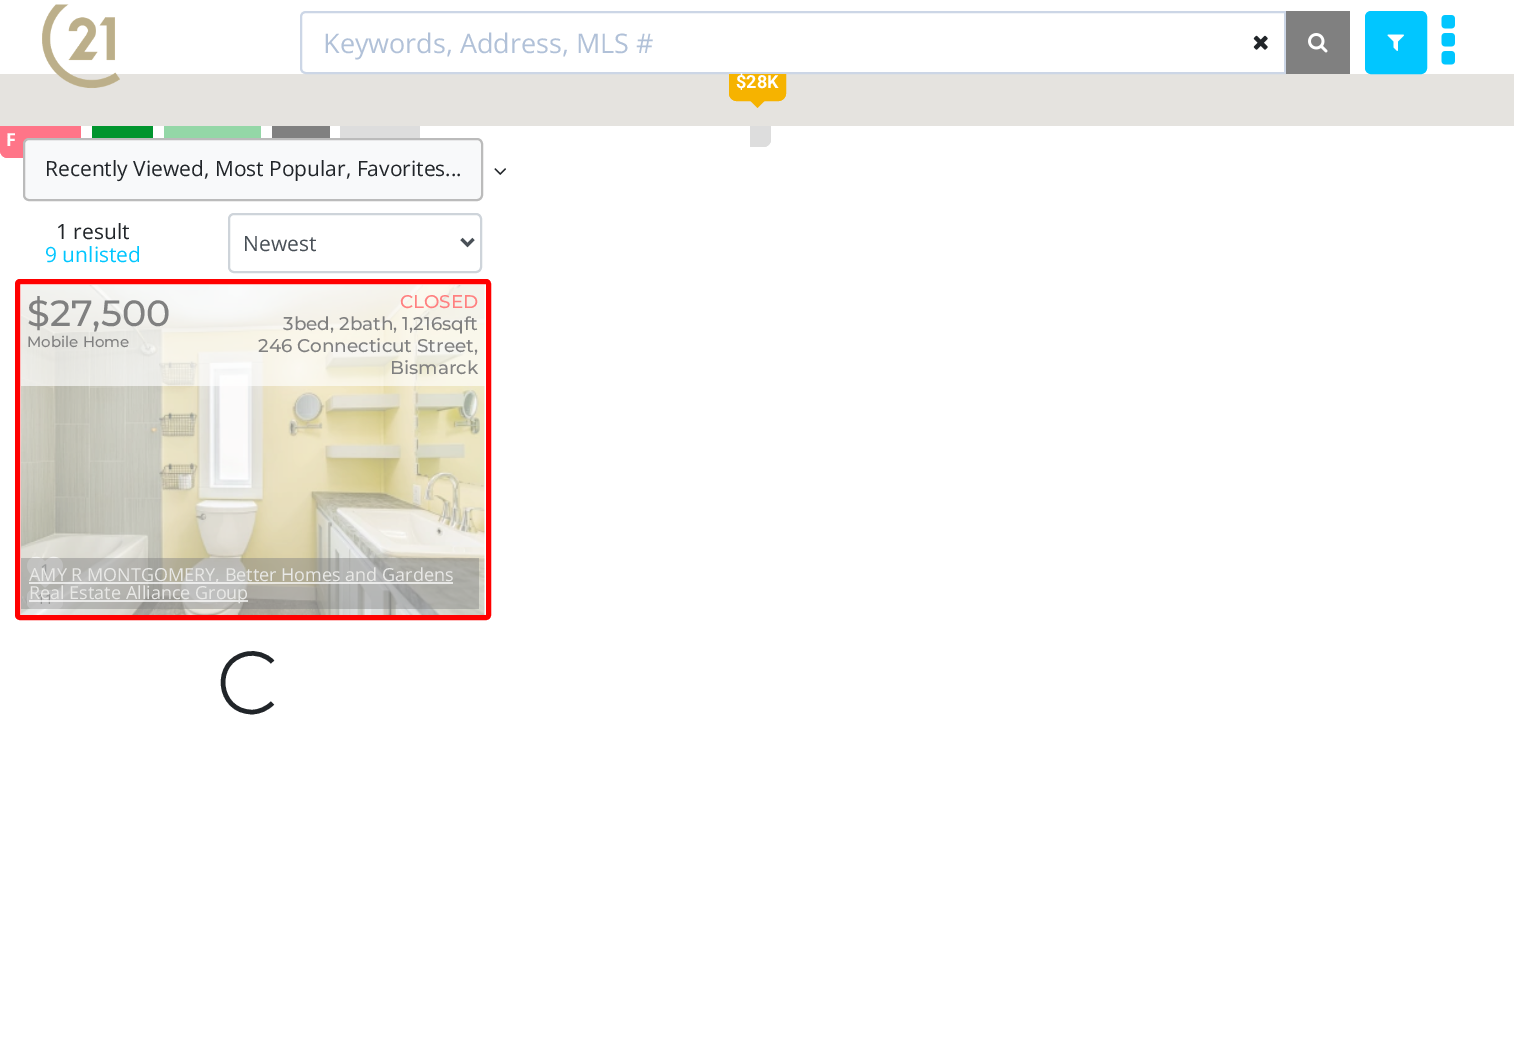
%!PS
<< /PageSize [1514 1040] /PageUsesTransparency true >> setpagedevice
/rgb { dup -16 bitshift 255 div exch dup -8 bitshift 255 and 255 div exch 255 and 255 div setrgbcolor } def
/font { [ exch dup neg 0 0 3 -1 roll 0 0 ] selectfont } def
/text { moveto show } def
/alpha { dup .setfillconstantalpha .setstrokeconstantalpha } def
/roundrect { 5 dict begin { /r /h /w /y /x } { exch def } forall
  x r add y moveto x w add y 2 copy h add r arct x w add y h add x 1 index r arct
  x y h add x y r arct x y 2 copy exch w add exch r arct closepath end } def
/picture { 5 dict begin { /h /w /y /x /name } { exch def } forall
  gsave x y translate w h scale
  w h 8 [w 0 0 h 0 0] name (r) file false 3 colorimage grestore end } def
0 .pushpdf14devicefilter
0 1040 translate 1 -1 scale
4 setmiterlimit
/s1 { /OpenSans-Regular 27 font 16#B1C1D8 rgb } def
/s2 { /Roboto-Bold 18 font 16#FFFFFF rgb } def
/s3 { /OpenSans-Bold 18 font 16#FFFFFF rgb } def
/s4 { /OpenSans-Regular 21 font 16#212529 rgb } def
/s5 { /OpenSans-Regular 21 font 16#01C6FF rgb } def
/s6 { /OpenSans-Regular 21 font 16#495057 rgb } def
/s7 { /Montserrat-Medium 36.5 font 16#808080 rgb } def
/s8 { /Montserrat-Medium 15 font 16#808080 rgb } def
/s9 { /Montserrat-Medium 18.4 font 16#FF8080 rgb } def
/s10 { /Montserrat-Medium 18.4 font 16#808080 rgb } def
/s11 { /OpenSans-Regular 18 font 16#AEB0B0 rgb } def
/s12 { /OpenSans-Regular 14 font 16#A2A3A2 rgb } def
/s13 { /OpenSans-Regular 18 font 16#E8E8E6 rgb } def
16#FFFFFF rgb
0 0 1514 1040 rectfill
16#00952E rgb
100 120 moveto 153 120 lineto 153 158 lineto 100 158 lineto 95.5 158 92 154.5 92 150 curveto 92 128 lineto 92 123.5 95.5 120 100 120 curveto closepath fill
99 120 moveto 153 120 lineto 153 158 lineto 99 158 lineto 95 158 92 154 92 150 curveto 92 128 lineto 92 123 95 120 99 120 curveto closepath 99 122 moveto 153 122 lineto 153 156 lineto 99 156 lineto 96 156 93 153 93 150 curveto 93 128 lineto 93 124 96 122 99 122 curveto closepath eofill
16#94D7A7 rgb
172 120 moveto 261 120 lineto 261 158 lineto 172 158 lineto 167.5 158 164 154.5 164 150 curveto 164 128 lineto 164 123.5 167.5 120 172 120 curveto closepath fill
171 120 moveto 261 120 lineto 261 158 lineto 171 158 lineto 167 158 164 154 164 150 curveto 164 128 lineto 164 123 167 120 171 120 curveto closepath 171 122 moveto 261 122 lineto 261 156 lineto 171 156 lineto 168 156 165 153 165 150 curveto 165 128 lineto 165 124 168 122 171 122 curveto closepath eofill
16#808080 rgb
280 120 moveto 330 120 lineto 330 158 lineto 280 158 lineto 275.5 158 272 154.5 272 150 curveto 272 128 lineto 272 123.5 275.5 120 280 120 curveto closepath fill
279 120 moveto 330 120 lineto 330 158 lineto 279 158 lineto 275 158 272 154 272 150 curveto 272 128 lineto 272 123 275 120 279 120 curveto closepath 279 122 moveto 330 122 lineto 330 156 lineto 279 156 lineto 276 156 273 153 273 150 curveto 273 128 lineto 273 124 276 122 279 122 curveto closepath eofill
16#DDDDDD rgb
342 126 78 12 rectfill
348 120 moveto 420 120 lineto 420 158 lineto 348 158 lineto 344 158 340 154 340 150 curveto 340 128 lineto 340 123 344 120 348 120 curveto closepath 348 122 moveto 420 122 lineto 420 156 lineto 348 156 lineto 345 156 342 153 342 150 curveto 342 128 lineto 342 124 345 122 348 122 curveto closepath eofill
750 120 moveto 763 120 lineto 767.5 120 771 123.5 771 128 curveto 771 139 lineto 771 143.5 767.5 147 763 147 curveto 750 147 lineto closepath fill
16#FF7588 rgb
8 120 moveto 81 120 lineto 81 158 lineto 8 158 lineto 3.5 158 0 154.5 0 150 curveto 0 128 lineto 0 123.5 3.5 120 8 120 curveto closepath fill
8 120 moveto 81 120 lineto 81 158 lineto 8 158 lineto 3 158 0 154 0 150 curveto 0 128 lineto 0 123 3 120 8 120 curveto closepath 8 122 moveto 81 122 lineto 81 156 lineto 8 156 lineto 4 156 2 153 2 150 curveto 2 128 lineto 2 124 4 122 8 122 curveto closepath eofill
16#DDDDDD rgb
750 120 moveto 763.5 120 lineto 767.5 120 771 123.5 771 127.5 curveto 771 139.5 lineto 771 143.5 767.5 147 763.5 147 curveto 750 147 lineto closepath 750 121.5 moveto 763.5 121.5 lineto 767 121.5 769.5 124 769.5 127.5 curveto 769.5 139.5 lineto 769.5 143 767 145.5 763.5 145.5 curveto 750 145.5 lineto closepath eofill
16#E5E3DF rgb
0 74 1514 52 rectfill
(pic1.raw) 42 4 78 85 picture
16#CCD6E6 rgb
2 setlinewidth
306 12 moveto 1285 12 lineto 1285 73 lineto 306 73 lineto 303 73 301 71 301 68 curveto 301 17 lineto 301 14 303 12 306 12 curveto closepath stroke
s1
(Keywords, Address, MLS #) 323 53 text
(pic2.raw) 1253 35 15 15 picture
16#808080 rgb
1286 11 64 63 rectfill
(pic3.raw) 1308 33 20 20 picture
16#01C6FF rgb
1366 12 60 61 5 roundrect gsave fill grestore
stroke
(pic4.raw) 1387 34 17 17 picture
(pic5.raw) 1441 15 14 50 picture
16#F6B300 rgb
729 74 moveto 786 74 lineto 786 93 lineto 786 97.5 782.5 101 778 101 curveto 737 101 lineto 732.5 101 729 97.5 729 93 curveto closepath fill
gsave
0 74 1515 52 rectclip
3 setlinewidth
730.5 66.5 54 33 6.5 roundrect stroke
grestore
s2
($28K) 736 88 text
16#F6B300 rgb
750 100.5 moveto 765 100.5 lineto 757.5 108 lineto closepath fill
s3
(F) 6 146 text
16#F8F9FA rgb
24 139 458 61 5 roundrect gsave fill grestore
16#BBBBBB rgb
stroke
s4
(Recently Viewed, Most Popular, Favorites...) 45 176 text
(pic6.raw) 494 168 12 7 picture
(1 result) 56 239 text
s5
(9 unlisted) 45 262 text
16#CED4DA rgb
229 214 252 58 5 roundrect stroke
16#495057 rgb
3 setlinewidth
461.5 239 moveto 467.5 245 lineto 473.5 239 lineto stroke
(Newest) 243 251 text
16#FF0000 rgb
5 setlinewidth
17.5 281.5 471 336 2.5 roundrect stroke
(pic7.raw) 21 285 464 330 picture
0.63 alpha
16#FFFFFF rgb
21 285 464 101 rectfill
1 alpha
s7
($27,500) 27 326 text
s8
(Mobile Home) 27 347 text
s9
(CLOSED) 400 308 text
s10
(3bed, 2bath, 1,216sqft) 283 330 text
(246 Connecticut Street,) 258 352 text
(Bismarck) 390 374 text
(pic8.raw) 27 556 36 32 picture
s11
(1) 40 577 text
0.7 alpha
16#FCFCFD rgb
27 590 36 19 6 roundrect fill
1 alpha
s12
(11) 37 604 text
0.44 alpha
16#808080 rgb
21 558 458 51 rectfill
0.7 alpha
16#FFFFFF rgb
29 582 424 2 rectfill
1 alpha
s13
(AMY R MONTGOMERY, Better Homes and Gardens) 29 581 text
0.7 alpha
16#FFFFFF rgb
29 600 219 2 rectfill
1 alpha
s13
(Real Estate Alliance Group) 29 599 text
16#212529 rgb
4.5 setlinewidth
272.5 703 moveto 267 708.5 259.5 712 252 712 curveto 217 712 212 660.5 246.5 654 curveto 256 652 266 655 272.5 662 curveto stroke
.poppdf14devicefilter showpage
